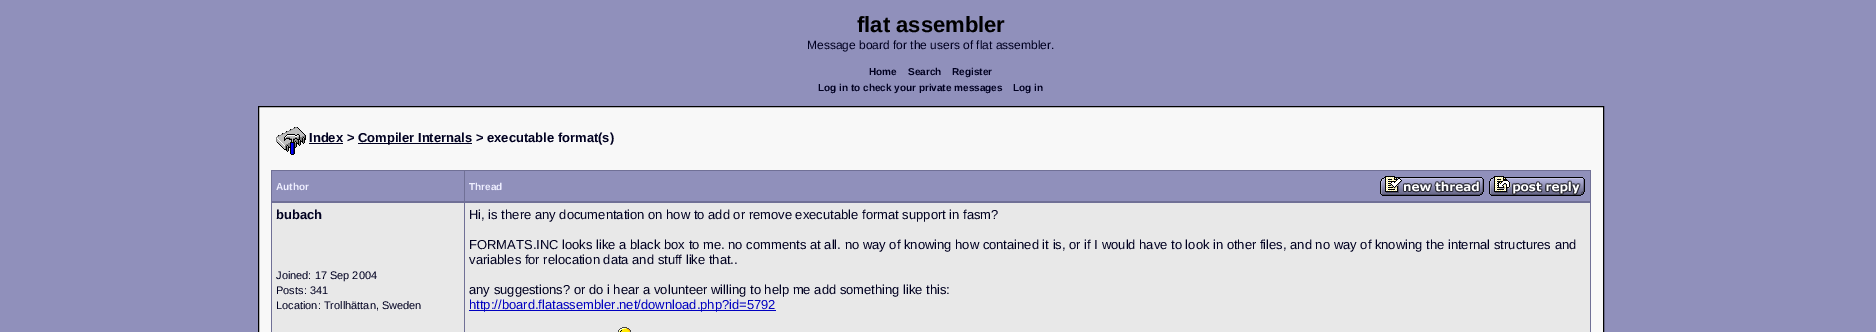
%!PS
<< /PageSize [1876 332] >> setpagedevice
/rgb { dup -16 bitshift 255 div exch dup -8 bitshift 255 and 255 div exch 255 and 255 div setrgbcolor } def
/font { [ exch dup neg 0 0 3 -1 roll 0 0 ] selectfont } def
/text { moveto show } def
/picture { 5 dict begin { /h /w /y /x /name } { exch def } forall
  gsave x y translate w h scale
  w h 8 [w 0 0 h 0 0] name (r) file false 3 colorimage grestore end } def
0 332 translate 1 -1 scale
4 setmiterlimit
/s1 { /LiberationSans-Bold 22 font 16#000000 rgb } def
/s2 { /LiberationSans-Regular 12 font 16#000020 rgb } def
/s3 { /LiberationSans-Bold 10 font 16#000020 rgb } def
/s4 { /LiberationSans-Bold 13 font 16#000020 rgb } def
/s5 { /LiberationSans-Bold 10 font 16#EEEEFF rgb } def
/s6 { /LiberationSans-Regular 11 font 16#000020 rgb } def
/s7 { /LiberationSans-Regular 13 font 16#000020 rgb } def
/s8 { /LiberationSans-Regular 13 font 16#0000C0 rgb } def
16#9090BB rgb
0 0 1876 332 rectfill
s1
(flat assembler) 857 32 text
s2
(Message board for the users of flat assembler.) 807 49 text
s3
(Home) 869 75 text
(Search) 908 75 text
(Register) 952 75 text
(Log in to check your private messages) 818 91 text
(Log in) 1013 91 text
16#F8F8F8 rgb
258.5 106.5 moveto 1603.5 106.5 lineto 1603.5 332.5 lineto 258.5 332.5 lineto closepath gsave fill grestore
16#000000 rgb
stroke
(pic1.raw) 276 127 30 28 picture
s4
(Index >) 309 142 text
309 143 34 1 rectfill
358 143 114 1 rectfill
(Compiler Internals > executable format\(s\)) 358 142 text
16#707096 rgb
271 170 1320 1 rectfill
1590 170 1 32 rectfill
271 201 1320 2 rectfill
271 170 1 162 rectfill
16#9090BB rgb
272 171 192 30 rectfill
s5
(Author) 276 190 text
16#9090BB rgb
465 171 1125 30 rectfill
16#707096 rgb
464 170 1 162 rectfill
s5
(Thread) 469 190 text
(pic2.raw) 1380 176 104 20 picture
(pic3.raw) 1489 176 96 20 picture
16#707096 rgb
1590 202 1 130 rectfill
16#E8E8E8 rgb
272 203 192 129 rectfill
s4
(bubach) 276 219 text
s6
(Joined: 17 Sep 2004) 276 279 text
(Posts: 341) 276 294 text
(Location: Trollhättan, Sweden) 276 309 text
16#E8E8E8 rgb
465 203 1125 129 rectfill
s7
(Hi, is there any documentation on how to add or remove executable format support in fasm?) 469 219 text
(FORMATS.INC looks like a black box to me. no comments at all. no way of knowing how contained it is, or if I would have to look in other files, and no way of knowing the internal structures and) 469 249 text
(variables for relocation data and stuff like that..) 469 264 text
(any suggestions? or do i hear a volunteer willing to help me add something like this:) 469 294 text
16#0000C0 rgb
469 310 307 1 rectfill
(http://board.flatassembler.net/download.php?id=5792) 469 309 text
(pic4.raw) 618 327 13 5 picture
showpage
